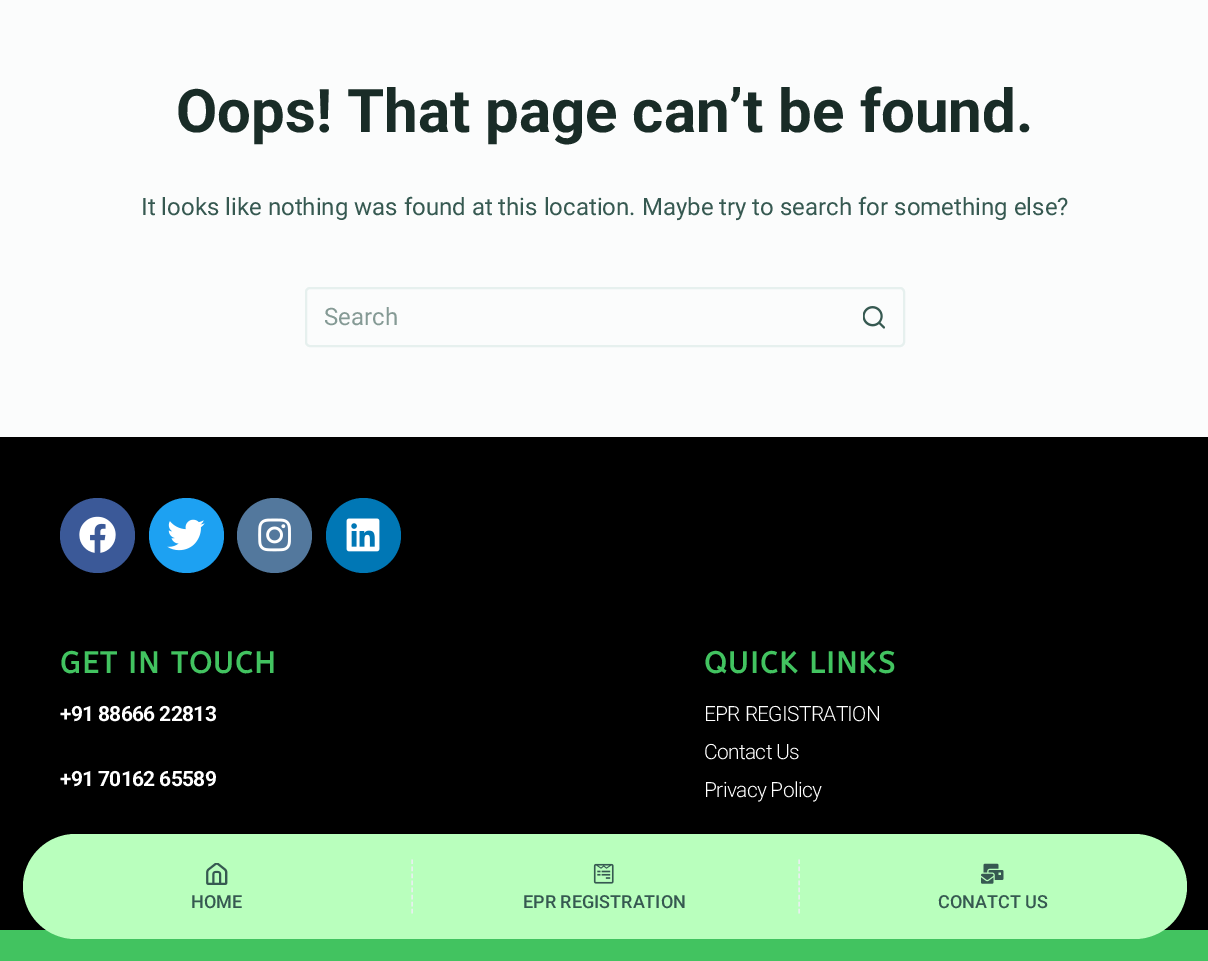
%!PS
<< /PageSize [1208 961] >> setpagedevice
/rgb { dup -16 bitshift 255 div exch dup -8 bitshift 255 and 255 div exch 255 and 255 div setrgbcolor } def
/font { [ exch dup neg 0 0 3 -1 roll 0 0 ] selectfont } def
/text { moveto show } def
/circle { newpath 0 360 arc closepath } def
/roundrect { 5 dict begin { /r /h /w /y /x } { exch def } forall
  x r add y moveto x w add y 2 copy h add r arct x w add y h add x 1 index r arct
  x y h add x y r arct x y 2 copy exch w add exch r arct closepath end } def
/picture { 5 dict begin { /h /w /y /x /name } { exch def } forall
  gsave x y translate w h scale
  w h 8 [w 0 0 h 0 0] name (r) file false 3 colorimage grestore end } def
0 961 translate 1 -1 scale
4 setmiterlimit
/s1 { /Roboto-Bold 60 font 16#192C27 rgb } def
/s2 { /Roboto-Regular 24 font 16#365951 rgb } def
/s3 { /Roboto-Regular 24 font 16#859A95 rgb } def
/s4 { /Roboto-Medium 18 font 16#365951 rgb } def
16#FBFCFC rgb
0 0 1208 961 rectfill
s1
(Oops! That page can’t be found.) 176 132 text
s2
(It looks like nothing was found at this location. Maybe try to search for something else?) 141 215 text
16#E6F0EE rgb
2 setlinewidth
306 288 598 58 4 roundrect stroke
s3
(Search) 324 325 text
(pic1.raw) 863 306 22 23 picture
16#000000 rgb
0 437 1208 493 rectfill
16#3B5998 rgb
97.5 535.5 37.5 circle fill
(pic2.raw) 79 516 37 37 picture
16#1DA1F2 rgb
186.5 535.5 37.5 circle fill
(pic3.raw) 167 519 38 32 picture
16#53789D rgb
274.5 535.5 37.5 circle fill
(pic4.raw) 258 518 33 34 picture
16#0077B5 rgb
363.5 535.5 37.5 circle fill
(pic5.raw) 346 518 34 34 picture
/ABeeZee-Bold 30 font
16#42C360 rgb
60 673 moveto 1.5 0 (GET IN TOUCH) ashow
/Roboto-Bold 21 font
16#FFFFFF rgb
60 721 moveto -0.7 0 (+91 88666 22813) ashow
60 786 moveto -0.7 0 (+91 70162 65589) ashow
/ABeeZee-Bold 30 font
16#42C360 rgb
704 673 moveto 1.5 0 (QUICK LINKS) ashow
/Roboto-Light 21 font
16#FFFFFF rgb
704 721 moveto -0.7 0 (EPR REGISTRATION) ashow
704 759 moveto -0.7 0 (Contact Us) ashow
704 797 moveto -0.7 0 (Privacy Policy) ashow
16#42C360 rgb
0 930 1208 31 rectfill
16#B9FFBD rgb
23 834 1164 105 52.5 roundrect fill
(pic6.raw) 206 863 22 22 picture
16#E6F0EE rgb
1.5 setlinewidth
[4.5 2.56] 0 setdash
412 859.5 moveto 412 913.5 lineto stroke
s4
(HOME) 191 908 text
(pic7.raw) 593 863 21 21 picture
16#E6F0EE rgb
799 859.5 moveto 799 913.5 lineto stroke
s4
(EPR REGISTRATION) 523 908 text
(pic8.raw) 981 863 23 21 picture
(CONATCT US) 938 908 text
showpage
